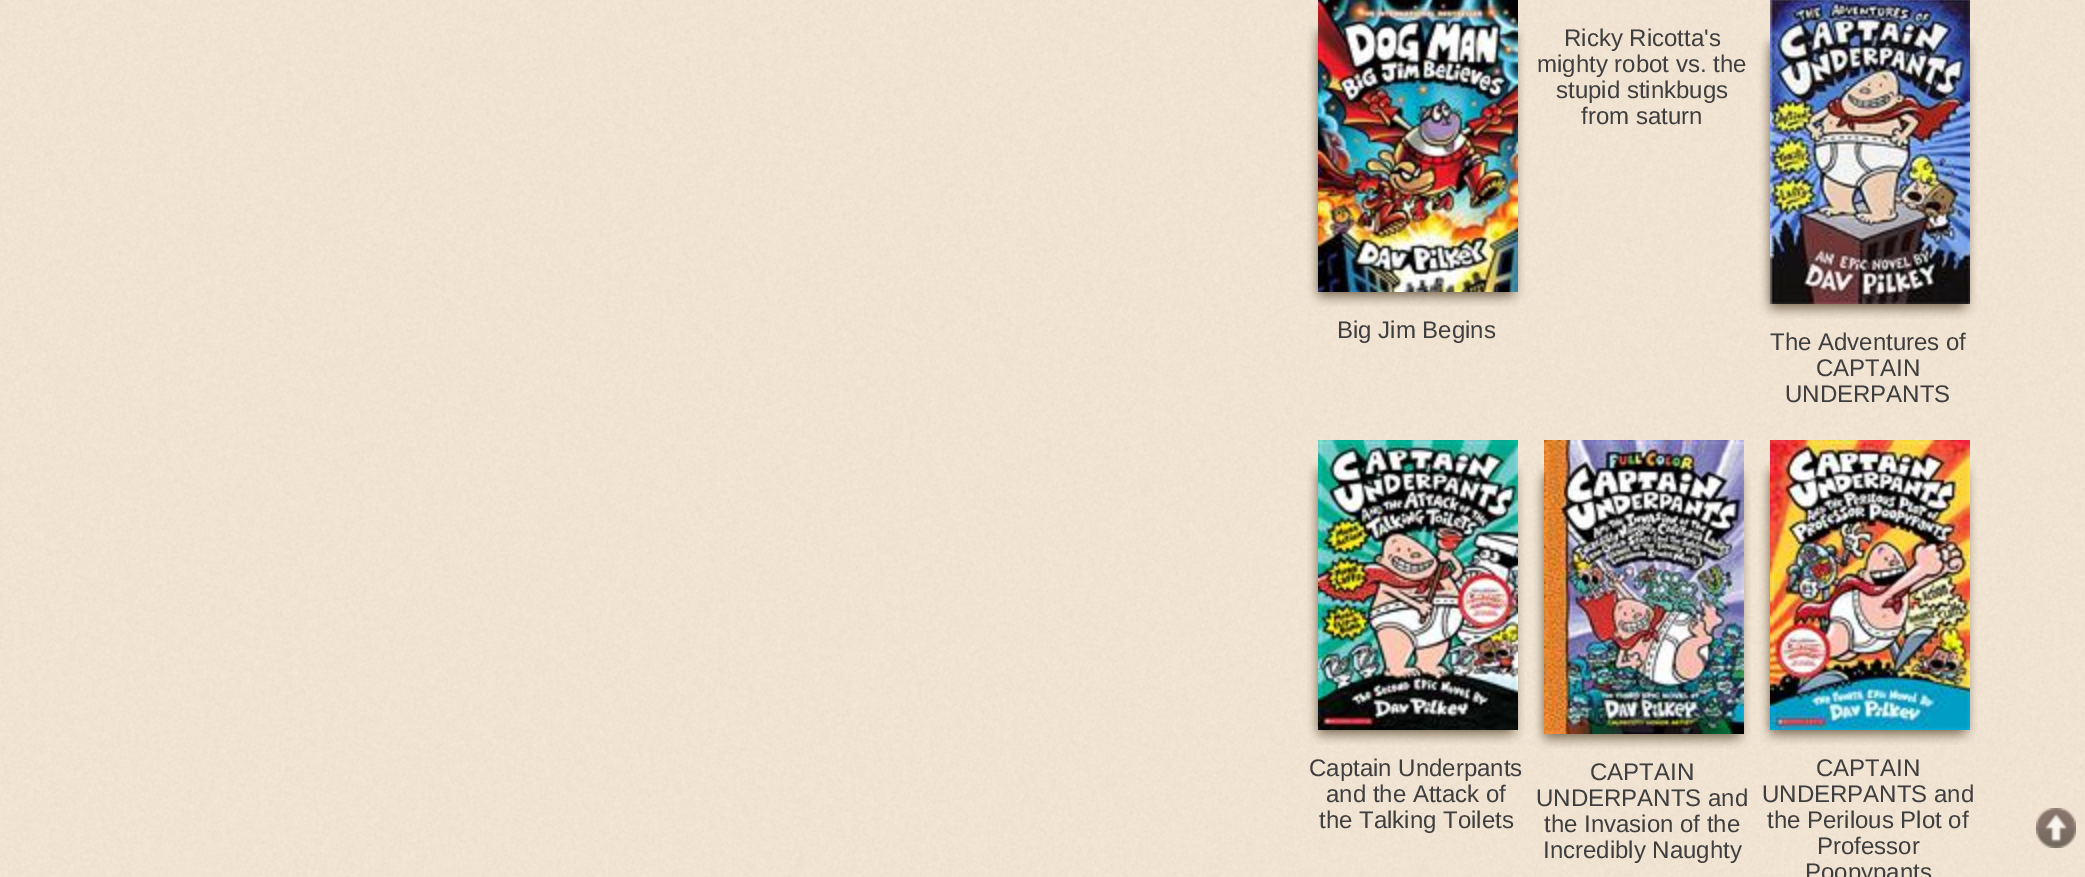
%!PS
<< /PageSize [2085 877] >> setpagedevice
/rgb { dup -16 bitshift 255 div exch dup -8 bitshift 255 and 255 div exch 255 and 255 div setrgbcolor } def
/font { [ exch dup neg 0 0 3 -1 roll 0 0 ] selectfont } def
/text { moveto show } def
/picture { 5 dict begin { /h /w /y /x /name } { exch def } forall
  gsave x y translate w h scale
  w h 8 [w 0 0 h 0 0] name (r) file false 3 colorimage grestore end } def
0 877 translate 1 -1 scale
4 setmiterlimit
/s1 { /LiberationSans-Regular 24 font 16#3E3E3E rgb } def
16#FFFFFF rgb
0 0 2085 877 rectfill
(pic1.raw) 0 0 2085 877 picture
s1
(Ricky Ricotta's) 1564 46 text
(mighty robot vs. the) 1537 72 text
(stupid stinkbugs) 1556 98 text
(from saturn) 1581 124 text
(pic2.raw) 1307 0 218 307 picture
(Big Jim Begins) 1337 338 text
(pic3.raw) 1759 0 218 319 picture
(The Adventures of) 1770 350 text
(CAPTAIN) 1816 376 text
(UNDERPANTS) 1785 402 text
(pic4.raw) 1307 440 218 305 picture
(Captain Underpants) 1309 776 text
(and the Attack of) 1326 802 text
(the Talking Toilets) 1319 828 text
(pic5.raw) 1533 440 218 309 picture
(CAPTAIN) 1590 780 text
(UNDERPANTS and) 1536 806 text
(the Invasion of the) 1544 832 text
(Incredibly Naughty) 1543 858 text
(pic6.raw) 1759 440 218 305 picture
(CAPTAIN) 1816 776 text
(UNDERPANTS and) 1762 802 text
(the Perilous Plot of) 1767 828 text
(Professor) 1817 854 text
(Poopypants) 1805 880 text
(pic7.raw) 2036 808 40 40 picture
showpage
